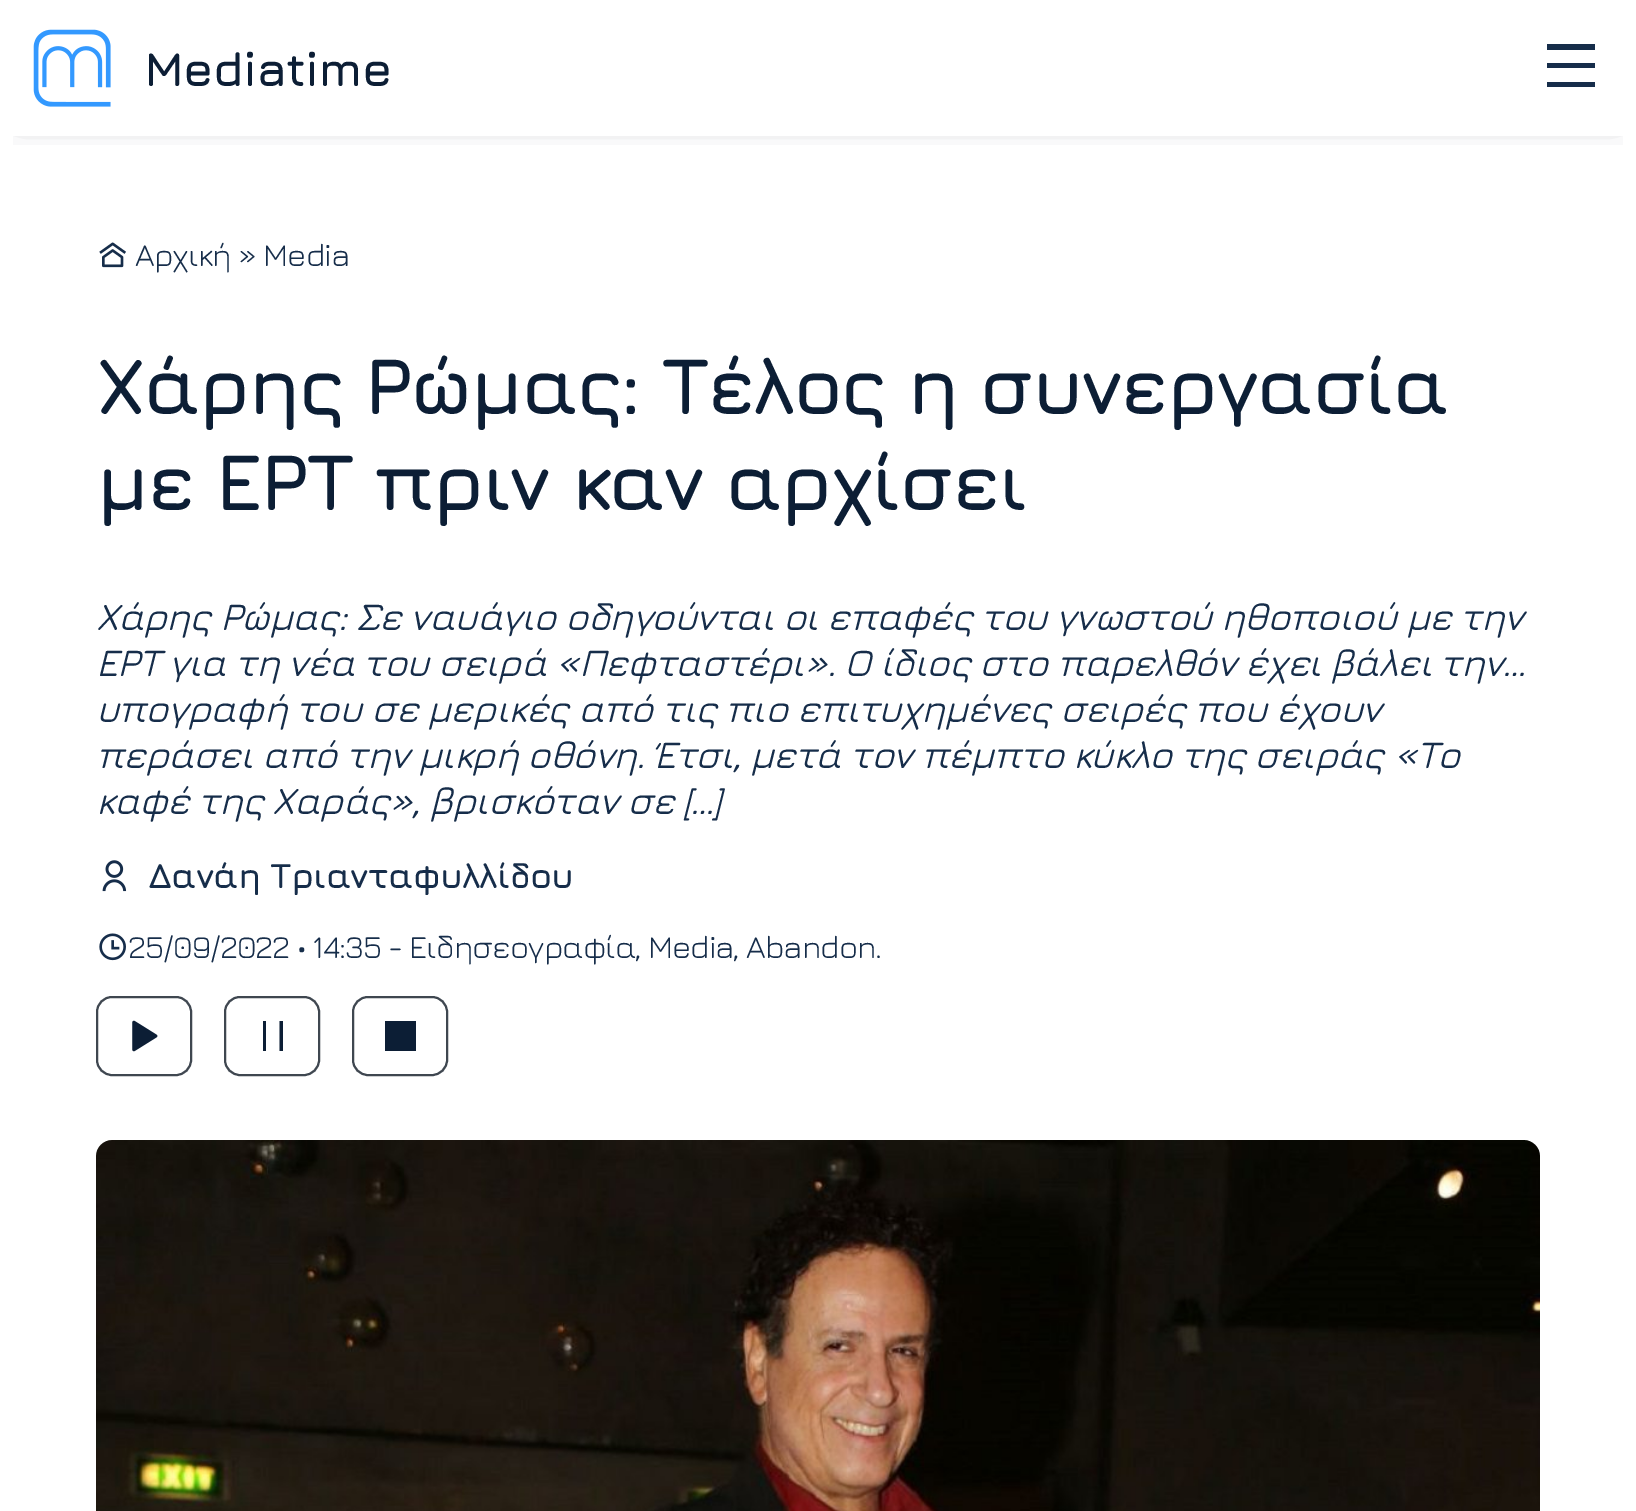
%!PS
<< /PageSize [1636 1511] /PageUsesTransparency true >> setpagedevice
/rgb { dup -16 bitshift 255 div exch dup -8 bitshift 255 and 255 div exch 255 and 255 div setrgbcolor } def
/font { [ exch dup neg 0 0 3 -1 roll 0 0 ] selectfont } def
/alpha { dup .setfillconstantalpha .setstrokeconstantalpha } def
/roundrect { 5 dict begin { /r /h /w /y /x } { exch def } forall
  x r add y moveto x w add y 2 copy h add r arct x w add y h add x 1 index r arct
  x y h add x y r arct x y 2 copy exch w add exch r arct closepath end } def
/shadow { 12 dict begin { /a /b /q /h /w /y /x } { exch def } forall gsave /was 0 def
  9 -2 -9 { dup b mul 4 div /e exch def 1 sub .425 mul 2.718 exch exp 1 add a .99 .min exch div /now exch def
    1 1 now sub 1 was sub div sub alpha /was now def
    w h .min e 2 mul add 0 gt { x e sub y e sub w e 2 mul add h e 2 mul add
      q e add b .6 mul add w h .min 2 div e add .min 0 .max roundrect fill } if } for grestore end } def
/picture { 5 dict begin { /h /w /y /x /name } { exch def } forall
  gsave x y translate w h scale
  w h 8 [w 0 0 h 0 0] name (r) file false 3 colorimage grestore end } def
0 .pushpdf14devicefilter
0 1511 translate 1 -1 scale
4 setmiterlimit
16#FFFFFF rgb
0 0 1636 1511 rectfill
gsave
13 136 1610 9 rectclip
16#3F4750 rgb
20 12 1596 96 0 18 1 shadow
grestore
(pic1.raw) 33 29 78 78 picture
/Jura-Bold 48 font
16#0C1E35 rgb
144 86 moveto -1 0 (Mediatime) ashow
16#162D4A rgb
1547 44 moveto 1595 44 lineto 1595 50 lineto 1547 50 lineto closepath 1547 63 moveto 1595 63 lineto 1595 68 lineto 1547 68 lineto closepath 1547 82 moveto 1595 82 lineto 1595 87 lineto 1547 87 lineto closepath fill
(pic2.raw) 99 242 27 26 picture
/Jura-Regular 32 font
135 266 moveto -1 0 (Αρχική » Media) ashow
/Jura-Bold 80 font
16#0C1E35 rgb
96 414 moveto -3 0 (Χάρης Ρώμας: Τέλος η συνεργασία) ashow
96 510 moveto -3 0 (με ΕΡΤ πριν καν αρχίσει) ashow
/Jura-MediumItalic 38.4 font
16#162D4A rgb
96 630 moveto -1 0 (Χάρης Ρώμας: Σε ναυάγιο οδηγούνται οι επαφές του γνωστού ηθοποιού με την) ashow
96 676 moveto -1 0 (ΕΡΤ για τη νέα του σειρά «Πεφταστέρι». Ο ίδιος στο παρελθόν έχει βάλει την…) ashow
96 722 moveto -1 0 (υπογραφή του σε μερικές από τις πιο επιτυχημένες σειρές που έχουν) ashow
96 768 moveto -1 0 (περάσει από την μικρή οθόνη. Έτσι, μετά τον πέμπτο κύκλο της σειράς «Το) ashow
96 814 moveto -1 0 (καφέ της Χαράς», βρισκόταν σε […]) ashow
(pic3.raw) 102 860 25 32 picture
/Jura-Bold 35.25 font
148 888 moveto -1 0 (Δανάη Τριανταφυλλίδου) ashow
(pic4.raw) 99 933 27 28 picture
/Jura-Regular 32 font
128 958 moveto -1 0 (25/09/2022 • 14:35 - Ειδησεογραφία, Media, Abandon.) ashow
16#3F4750 rgb
2 setlinewidth
97 997 94 78 15 roundrect stroke
(pic5.raw) 132 1020 26 32 picture
225 997 94 78 15 roundrect stroke
16#0C1E35 rgb
263 1021 moveto 266 1021 lineto 266 1051 lineto 263 1051 lineto closepath 279.5 1021 moveto 283 1021 lineto 283 1051 lineto 279.5 1051 lineto closepath fill
16#3F4750 rgb
353 997 94 78 15 roundrect stroke
16#0C1E35 rgb
385 1021 31 30 rectfill
(pic6.raw) 96 1140 1444 371 picture
.poppdf14devicefilter showpage
